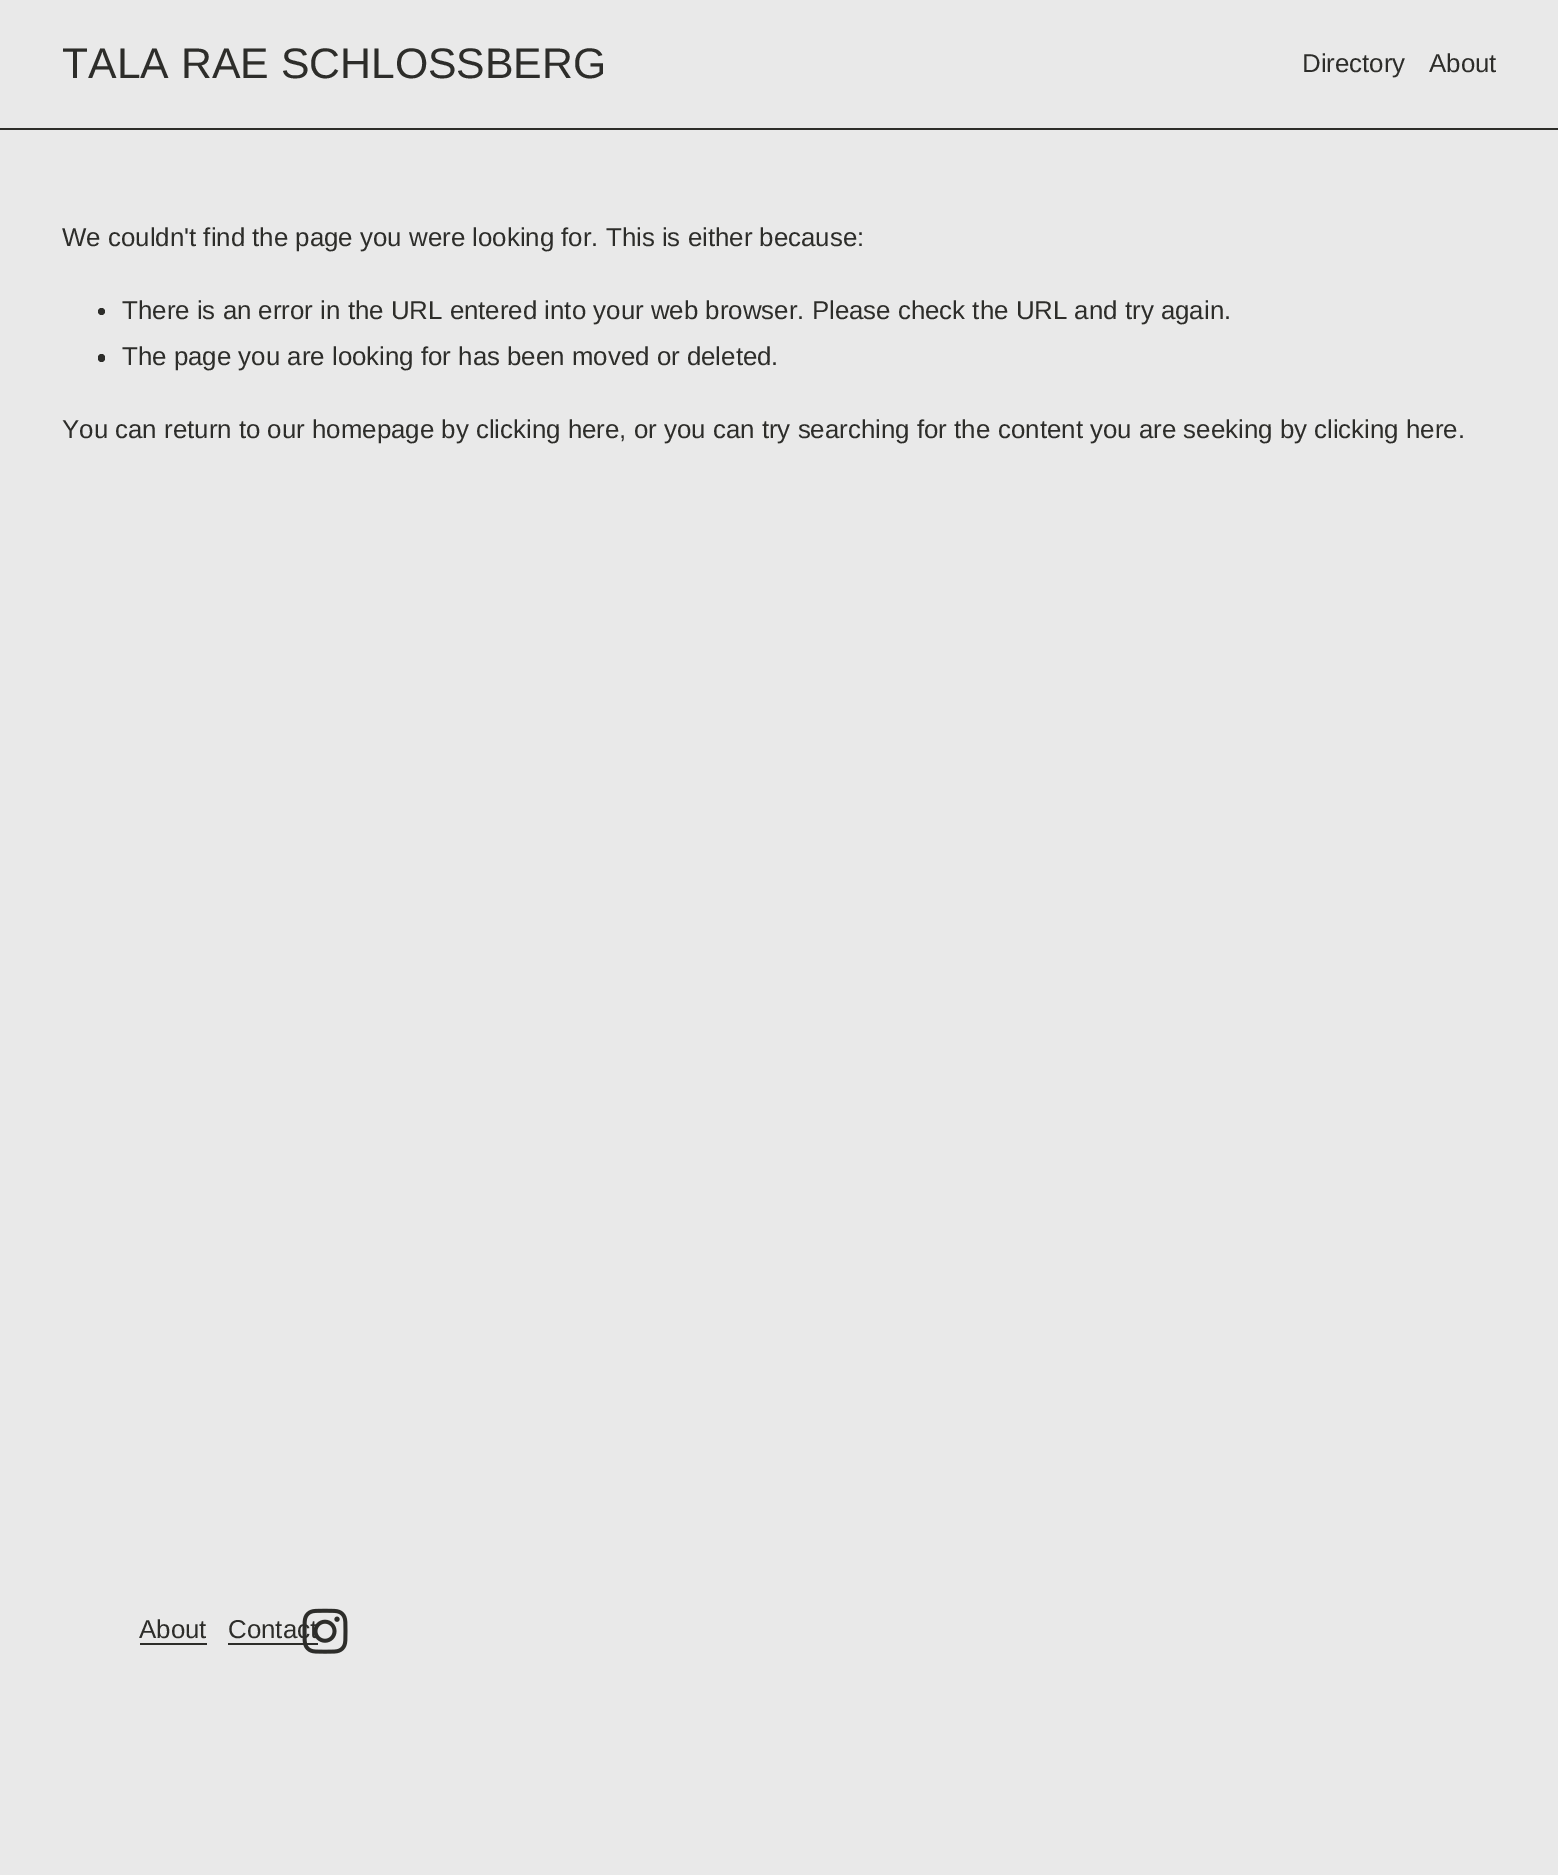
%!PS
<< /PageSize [1558 1875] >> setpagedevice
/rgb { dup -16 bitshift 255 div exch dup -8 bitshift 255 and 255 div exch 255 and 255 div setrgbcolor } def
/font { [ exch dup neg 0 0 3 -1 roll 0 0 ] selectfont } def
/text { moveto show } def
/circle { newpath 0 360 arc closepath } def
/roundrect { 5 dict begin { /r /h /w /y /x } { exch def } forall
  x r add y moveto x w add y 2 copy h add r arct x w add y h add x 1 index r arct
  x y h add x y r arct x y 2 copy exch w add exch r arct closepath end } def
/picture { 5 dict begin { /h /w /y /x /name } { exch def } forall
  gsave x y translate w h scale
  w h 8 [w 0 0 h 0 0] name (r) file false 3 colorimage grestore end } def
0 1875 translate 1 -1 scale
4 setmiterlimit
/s1 { /LiberationSans-Regular 42.75 font 16#2D2D2A rgb } def
/s2 { /LiberationSans-Regular 25.85 font 16#2D2D2A rgb } def
16#E9E9E9 rgb
0 0 1558 1875 rectfill
s1
(TALA RAE SCHLOSSBERG) 62 78 text
s2
(Directory) 1302 72 text
(About) 1429 72 text
0 128 1558 2 rectfill
(We couldn't find the page you were looking for. This is either because:) 62 246 text
101.5 311.5 3.5 circle fill
(There is an error in the URL entered into your web browser. Please check the URL and try again.) 122 319 text
98 354 7 8 3.5 roundrect fill
(The page you are looking for has been moved or deleted.) 122 365 text
(You can return to our homepage by clicking here, or you can try searching for the) 62 438 text
(content you are seeking by clicking here.) 998 438 text
(About) 139 1638 text
140 1643 67 2 rectfill
(Contact) 228 1638 text
228 1643 90 2 rectfill
(pic1.raw) 302 1608 46 46 picture
showpage
